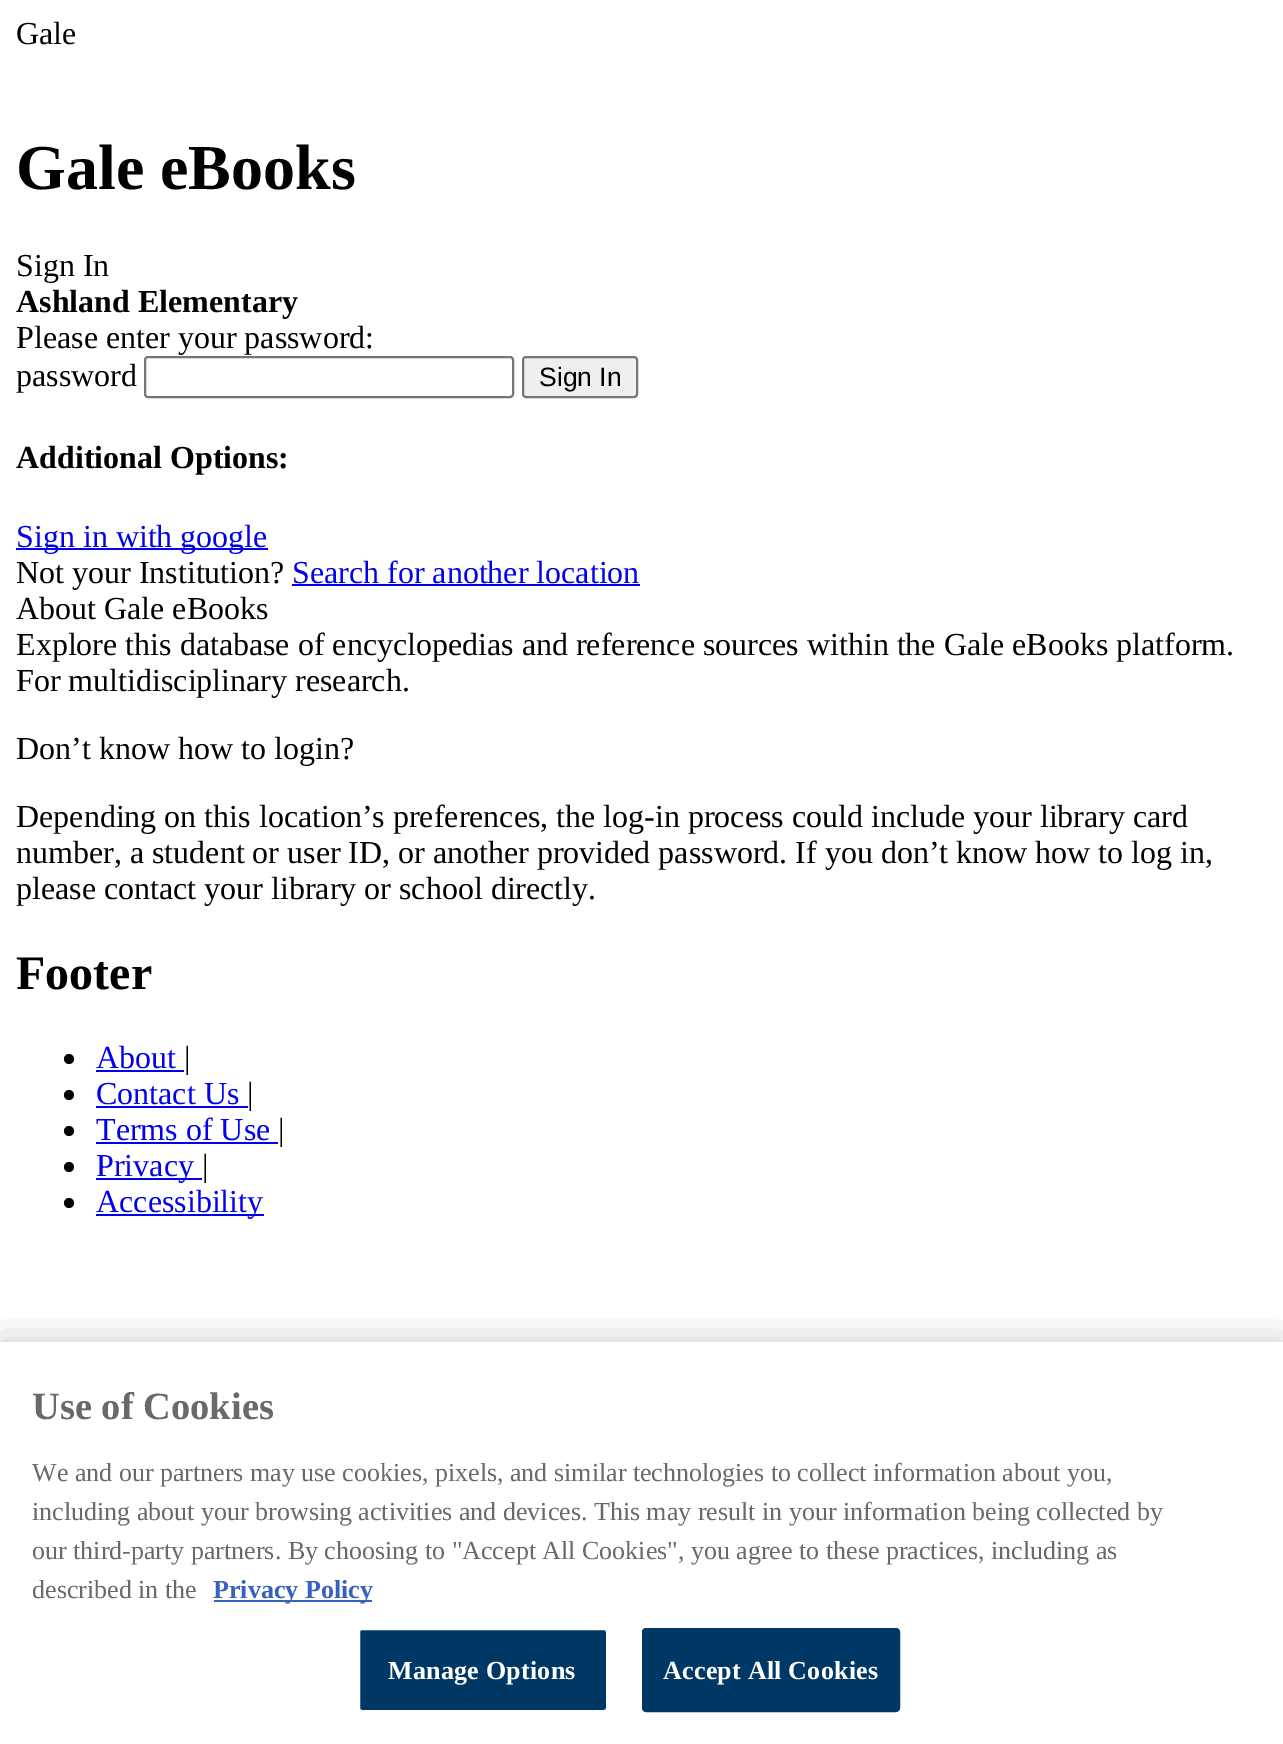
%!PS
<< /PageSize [1283 1744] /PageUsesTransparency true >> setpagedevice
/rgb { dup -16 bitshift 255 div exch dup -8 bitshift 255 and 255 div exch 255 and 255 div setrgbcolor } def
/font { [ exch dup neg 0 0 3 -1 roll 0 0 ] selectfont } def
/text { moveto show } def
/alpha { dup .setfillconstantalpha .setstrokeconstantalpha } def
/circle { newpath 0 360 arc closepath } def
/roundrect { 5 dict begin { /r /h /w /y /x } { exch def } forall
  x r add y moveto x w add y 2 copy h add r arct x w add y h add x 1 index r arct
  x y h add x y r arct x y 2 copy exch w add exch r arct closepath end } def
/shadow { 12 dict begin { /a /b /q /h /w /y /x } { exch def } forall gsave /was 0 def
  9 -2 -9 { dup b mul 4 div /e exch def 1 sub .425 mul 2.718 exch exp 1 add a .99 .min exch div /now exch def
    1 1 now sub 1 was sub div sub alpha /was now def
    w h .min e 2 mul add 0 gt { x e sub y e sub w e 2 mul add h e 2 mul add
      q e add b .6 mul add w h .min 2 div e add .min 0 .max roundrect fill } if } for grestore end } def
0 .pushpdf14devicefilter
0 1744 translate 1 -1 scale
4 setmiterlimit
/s1 { /LiberationSerif-Regular 32 font 16#000000 rgb } def
/s2 { /LiberationSerif-Bold 64 font 16#000000 rgb } def
/s3 { /LiberationSerif-Bold 32 font 16#000000 rgb } def
/s4 { /LiberationSans-Regular 26.5 font 16#000000 rgb } def
/s5 { /LiberationSerif-Regular 32 font 16#0000EE rgb } def
/s6 { /LiberationSerif-Bold 48 font 16#000000 rgb } def
/s7 { /LiberationSerif-Bold 38.5 font 16#696969 rgb } def
/s8 { /LiberationSerif-Regular 26 font 16#696969 rgb } def
/s9 { /LiberationSerif-Bold 26 font 16#3860BE rgb } def
16#FFFFFF rgb
0 0 1283 1744 rectfill
s1
(Gale) 16 44 text
s2
(Gale eBooks) 16 189 text
s1
(Sign In) 16 276 text
s3
(Ashland Elementary) 16 312 text
s1
(Please enter your password:) 16 348 text
(password) 16 386 text
16#767676 rgb
2 setlinewidth
145 357 368 40 3 roundrect stroke
16#EFEFEF rgb
523 357 114 40 3 roundrect gsave fill grestore
16#767676 rgb
stroke
s4
(Sign In) 539 386 text
s3
(Additional Options:) 16 468 text
16#0000EE rgb
16 548 252 2 rectfill
s5
(Sign in with google) 16 547 text
s1
(Not your Institution?) 16 583 text
s5
(Search for another location) 292 583 text
292 584 348 2 rectfill
s1
(About Gale eBooks) 16 619 text
(Explore this database of encyclopedias and reference sources within the Gale eBooks platform.) 16 655 text
(For multidisciplinary research.) 16 691 text
(Don’t know how to login?) 16 759 text
(Depending on this location’s preferences, the log-in process could include your library card) 16 827 text
(number, a student or user ID, or another provided password. If you don’t know how to log in,) 16 863 text
(please contact your library or school directly.) 16 899 text
s6
(Footer) 16 989 text
69 1059 5 circle fill
s5
(About) 96 1068 text
96 1070 88 2 rectfill
s1
(|) 184 1068 text
69 1095 5 circle fill
s5
(Contact Us) 96 1104 text
96 1106 152 2 rectfill
s1
(|) 247 1104 text
69 1131 5 circle fill
s5
(Terms of Use) 96 1140 text
96 1142 182 2 rectfill
s1
(|) 278 1140 text
69 1167 5 circle fill
16#0000EE rgb
96 1178 106 2 rectfill
(Privacy) 96 1176 text
s1
(|) 202 1176 text
69 1203 5 circle fill
16#0000EE rgb
96 1214 168 2 rectfill
(Accessibility) 96 1212 text
gsave
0 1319 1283 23 rectclip
16#000000 rgb
0 1342 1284 402 0 18 0.2 shadow
grestore
s7
(Use of Cookies) 32 1419 text
s8
(We and our partners may use cookies, pixels, and similar technologies to collect information about you,) 32 1481 text
(including about your browsing activities and devices. This may result in your information being collected by) 32 1520 text
(our third-party partners. By choosing to "Accept All Cookies", you agree to these practices, including as) 32 1559 text
(described in the) 32 1598 text
16#3860BE rgb
214 1600 158 2 rectfill
s9
(Privacy Policy) 213 1598 text
16#003865 rgb
359 1629 248 82 3 roundrect gsave fill grestore
16#FFFFFF rgb
stroke
388 1679 moveto 0.25 0 (Manage Options) ashow
16#003865 rgb
643 1629 256 82 3 roundrect gsave fill grestore
stroke
16#FFFFFF rgb
663 1679 moveto 0.25 0 (Accept All Cookies) ashow
.poppdf14devicefilter showpage
